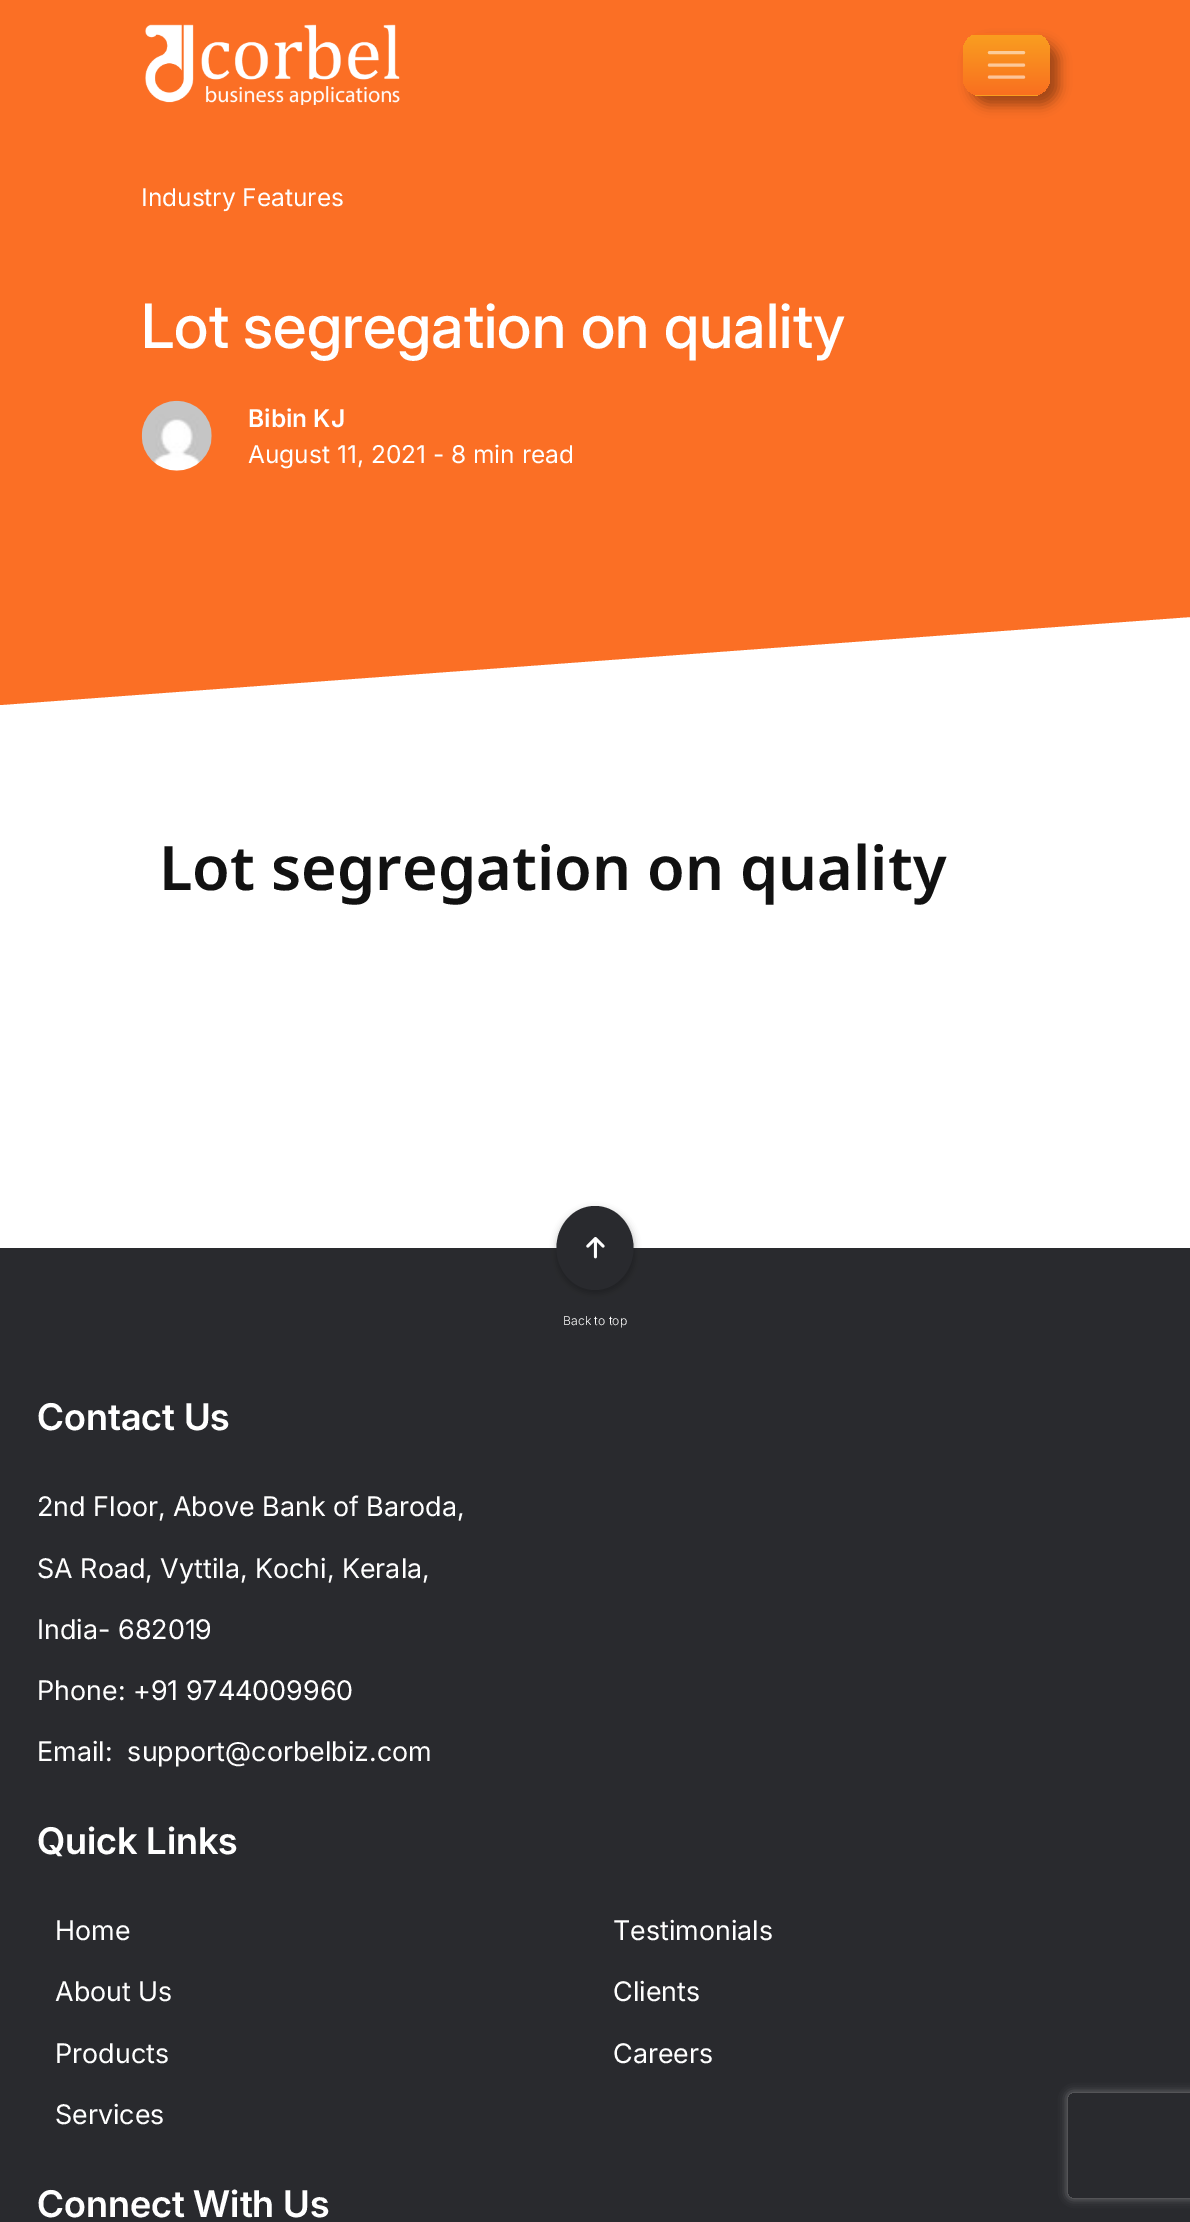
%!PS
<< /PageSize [1190 2222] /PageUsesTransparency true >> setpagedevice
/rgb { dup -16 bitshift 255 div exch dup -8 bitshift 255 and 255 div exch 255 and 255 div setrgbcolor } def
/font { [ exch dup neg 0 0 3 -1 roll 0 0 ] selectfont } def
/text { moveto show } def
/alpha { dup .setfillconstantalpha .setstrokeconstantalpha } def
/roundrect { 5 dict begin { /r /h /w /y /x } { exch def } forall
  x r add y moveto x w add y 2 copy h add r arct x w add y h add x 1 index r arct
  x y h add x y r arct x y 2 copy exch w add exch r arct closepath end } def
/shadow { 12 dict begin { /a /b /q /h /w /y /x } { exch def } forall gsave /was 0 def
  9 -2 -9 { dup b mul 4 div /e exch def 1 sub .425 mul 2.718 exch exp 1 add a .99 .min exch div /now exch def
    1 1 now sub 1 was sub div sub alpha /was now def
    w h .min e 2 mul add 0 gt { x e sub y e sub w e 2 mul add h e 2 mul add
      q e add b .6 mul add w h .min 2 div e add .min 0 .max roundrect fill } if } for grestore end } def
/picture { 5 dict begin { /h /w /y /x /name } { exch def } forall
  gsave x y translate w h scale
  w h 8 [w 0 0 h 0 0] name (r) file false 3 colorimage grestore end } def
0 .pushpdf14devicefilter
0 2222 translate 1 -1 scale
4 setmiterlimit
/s1 { /Inter-Regular 24.5 font 16#FFFFFF rgb } def
/s2 { /Inter-Medium 61.25 font 16#FFFFFF rgb } def
/s3 { /Inter-SemiBold 24.5 font 16#FFFFFF rgb } def
/s4 { /NotoSans-SemiBold 61.25 font 16#111111 rgb } def
/s5 { /Inter-Light 12.25 font 16#FFFFFF rgb } def
/s6 { /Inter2-SemiBold 36.75 font 16#FFFFFF rgb } def
/s7 { /Inter2-Regular 27 font 16#FFFFFF rgb } def
16#FFFFFF rgb
0 0 1190 2222 rectfill
16#FB6F25 rgb
0 0 1190 607 rectfill
(pic1.raw) 145 24 255 81 picture
16#000000 rgb
971 42 88 63 18 6 0.35 shadow
gsave
963 33 87 63 18 roundrect clip newpath
gsave 973 33 moveto 1040 33 lineto 1040 35 lineto 973 35 lineto closepath clip newpath
<< /ShadingType 2 /ColorSpace /DeviceRGB /Coords [1006 -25 1006 35] /Extend [true true] /Function << /FunctionType 2 /Domain [0 1] /C0 [0.976 0.62 0.122] /C1 [0.976 0.435 0.122] /N 1 >> >> shfill grestore
gsave 963 35 moveto 1050 35 lineto 1050 95 lineto 963 95 lineto closepath clip newpath
<< /ShadingType 2 /ColorSpace /DeviceRGB /Coords [1006 35 1006 95] /Extend [true true] /Function << /FunctionType 2 /Domain [0 1] /C0 [0.976 0.62 0.122] /C1 [0.976 0.435 0.122] /N 1 >> >> shfill grestore
gsave 975 95 moveto 1038 95 lineto 1038 96 lineto 975 96 lineto closepath clip newpath
<< /ShadingType 2 /ColorSpace /DeviceRGB /Coords [1006 95 1006 154] /Extend [true true] /Function << /FunctionType 2 /Domain [0 1] /C0 [0.976 0.62 0.122] /C1 [0.976 0.435 0.122] /N 1 >> >> shfill grestore
grestore
0.55 alpha
16#FFFFFF rgb
3.1 setlinewidth
1 setlinecap
989.5 52.5 moveto 1023.5 52.5 lineto 989.5 65 moveto 1023.5 65 lineto 989.5 77 moveto 1023.5 77 lineto stroke
1 alpha
s1
(Industry Features) 141 206 text
s2
(Lot segregation on quality) 141 348 text
(pic2.raw) 141 400 71 71 picture
s3
(Bibin KJ) 248 427 text
s1
(August 11, 2021 - 8 min read) 248 463 text
16#FB6F25 rgb
0 607 moveto 0 705 lineto 1190 617 lineto 1190 607 lineto closepath fill
s4
(Lot segregation on quality) 159 890 text
16#292A2E rgb
0 1248 1190 974 rectfill
16#000000 rgb
557 1209 77 84 38.5 3.5 0.25 shadow
16#292A2E rgb
595 1206 moveto 616.5 1206 633.5 1225 633.5 1248 curveto 633.5 1271 616.5 1290 595 1290 curveto 573.5 1290 556.5 1271 556.5 1248 curveto 556.5 1225 573.5 1206 595 1206 curveto closepath fill
(pic3.raw) 586 1237 19 22 picture
s5
(Back to top) 563 1325 text
s6
(Contact Us) 37 1430 text
s7
(2nd Floor, Above Bank of Baroda,) 37 1516 text
(SA Road, Vyttila, Kochi, Kerala,) 37 1578 text
(India- 682019) 37 1639 text
(Phone: +91 9744009960) 37 1700 text
(Email:  support@corbelbiz.com) 37 1761 text
s6
(Quick Links) 37 1854 text
s7
(Home) 55 1940 text
(About Us) 55 2001 text
(Products) 55 2063 text
(Services) 55 2124 text
(Testimonials) 613 1940 text
(Clients) 613 2001 text
(Careers) 613 2063 text
s6
(Connect With Us) 37 2217 text
gsave
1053 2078 moveto 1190 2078 lineto 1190 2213 lineto 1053 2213 lineto closepath 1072 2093 moveto 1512 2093 lineto 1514 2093 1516 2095 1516 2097 curveto 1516 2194 lineto 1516 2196 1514 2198 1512 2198 curveto 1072 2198 lineto 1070 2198 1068 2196 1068 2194 curveto 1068 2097 lineto 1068 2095 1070 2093 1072 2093 curveto closepath eoclip newpath
16#808080 rgb
1068 2093 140 105 4 4.5 1 shadow
grestore
.poppdf14devicefilter showpage
